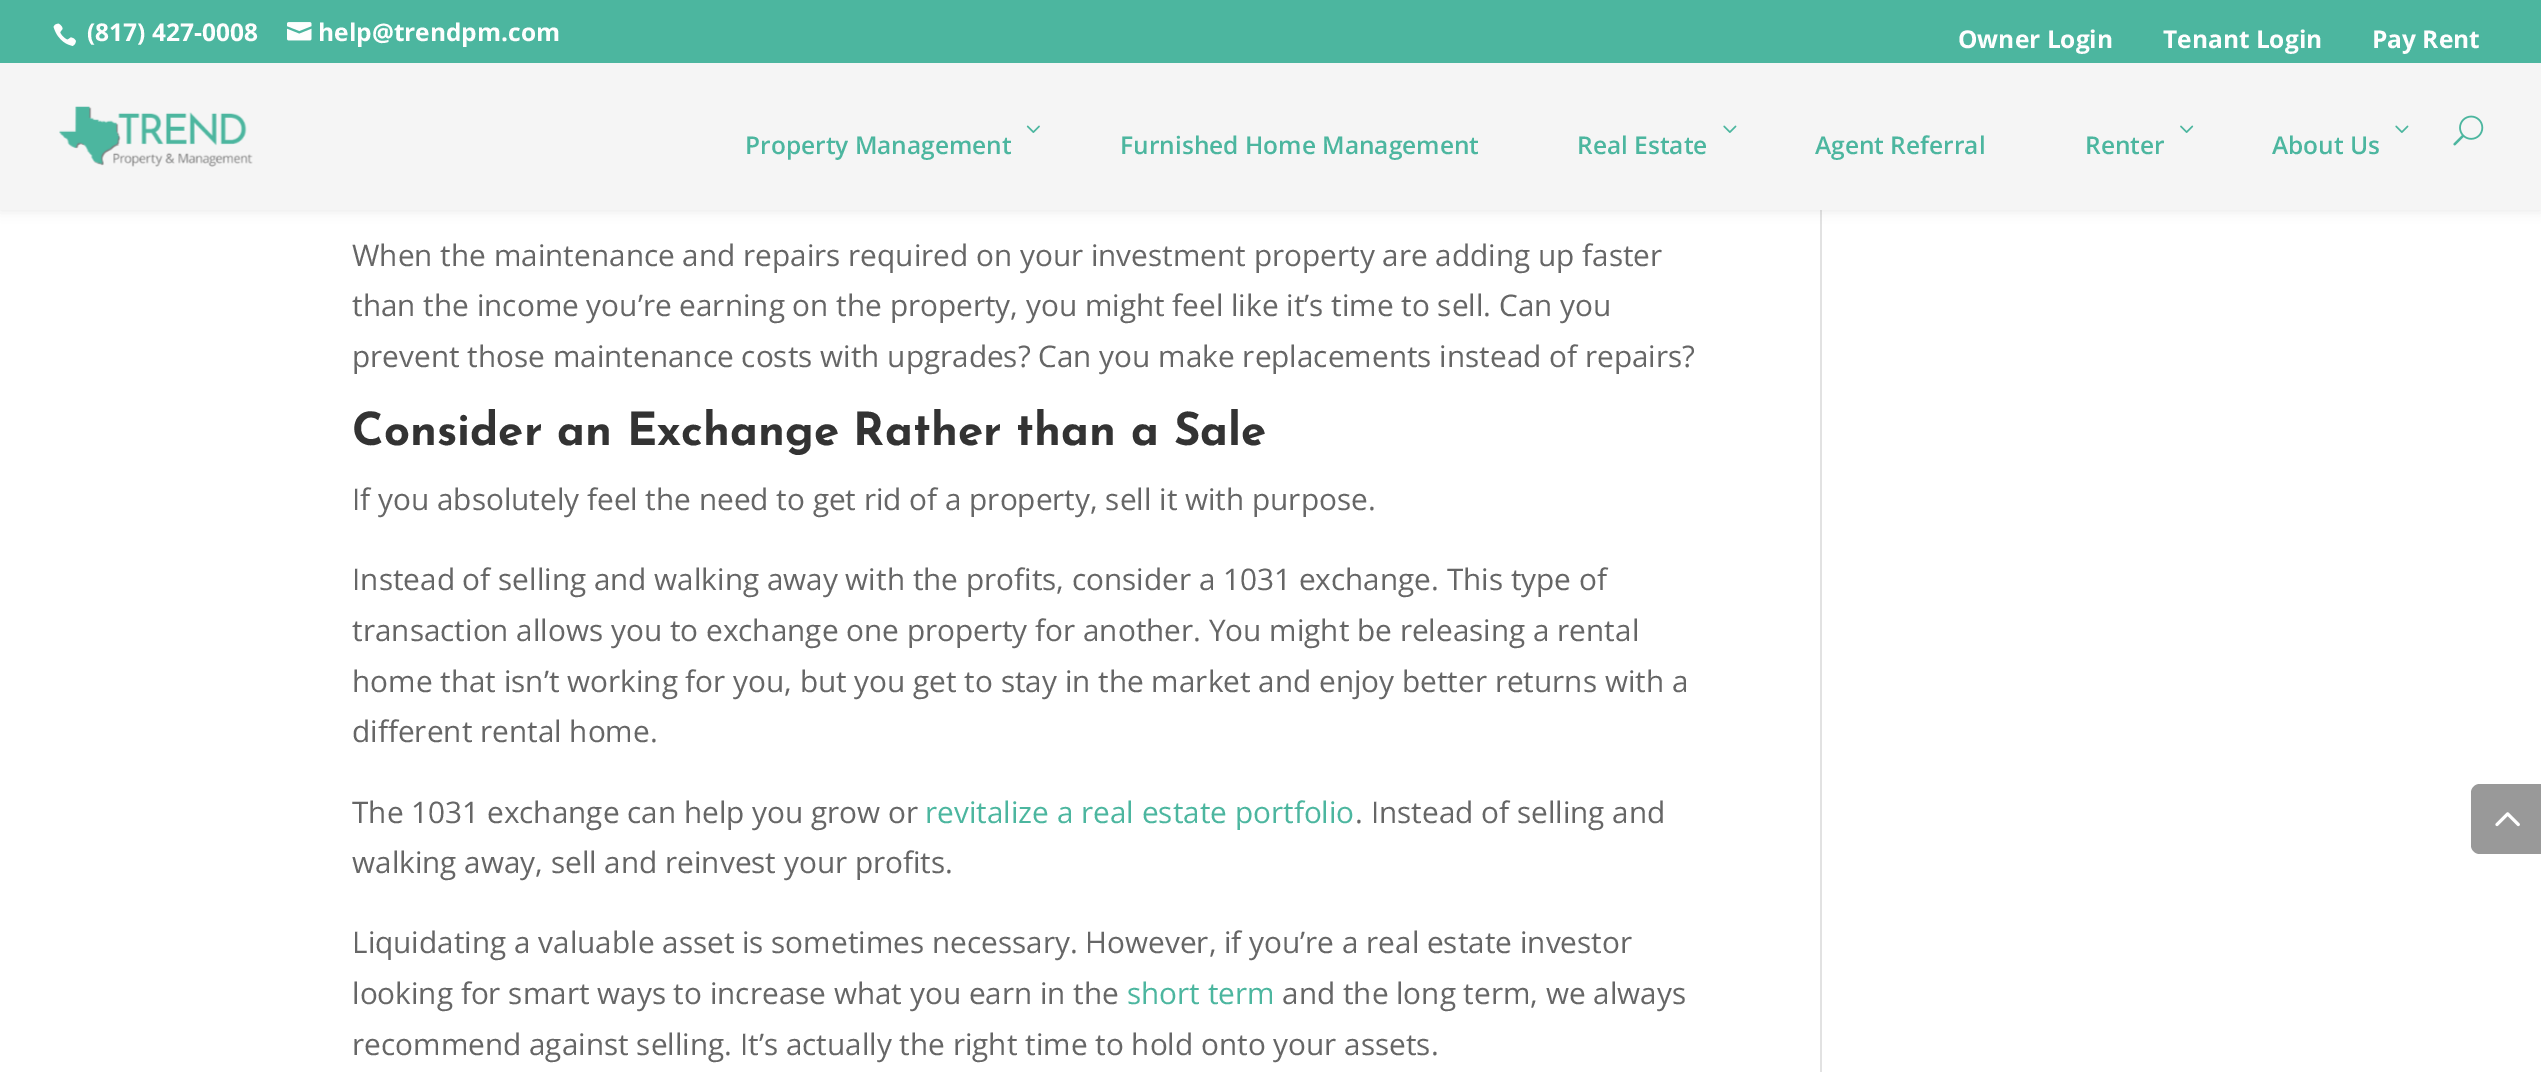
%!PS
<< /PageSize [2541 1072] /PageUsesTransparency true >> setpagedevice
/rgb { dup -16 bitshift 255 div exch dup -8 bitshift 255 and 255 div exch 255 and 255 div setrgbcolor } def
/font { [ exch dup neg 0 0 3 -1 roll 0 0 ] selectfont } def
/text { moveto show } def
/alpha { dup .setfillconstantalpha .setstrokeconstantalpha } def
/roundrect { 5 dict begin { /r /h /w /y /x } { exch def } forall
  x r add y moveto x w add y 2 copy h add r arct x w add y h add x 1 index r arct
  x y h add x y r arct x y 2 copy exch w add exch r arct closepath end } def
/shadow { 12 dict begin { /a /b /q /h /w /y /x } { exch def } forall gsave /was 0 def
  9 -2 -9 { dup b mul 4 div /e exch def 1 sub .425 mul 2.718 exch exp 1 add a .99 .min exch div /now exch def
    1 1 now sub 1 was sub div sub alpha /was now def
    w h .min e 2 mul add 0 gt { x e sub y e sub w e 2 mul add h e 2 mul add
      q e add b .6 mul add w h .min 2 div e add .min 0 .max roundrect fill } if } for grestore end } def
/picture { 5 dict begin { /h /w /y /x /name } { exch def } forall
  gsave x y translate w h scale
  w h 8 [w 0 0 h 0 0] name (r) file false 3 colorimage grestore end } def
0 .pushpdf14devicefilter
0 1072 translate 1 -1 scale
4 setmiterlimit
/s1 { /OpenSans-Bold 24.5 font 16#FEFEFE rgb } def
/s2 { /OpenSans-SemiBold 24.5 font 16#4CB69F rgb } def
/s3 { /OpenSans-Regular 29.75 font 16#666666 rgb } def
/s4 { /JosefinSans-Bold 45.5 font 16#333333 rgb } def
/s5 { /OpenSans-Regular 29.75 font 16#4CB69F rgb } def
16#FFFFFF rgb
0 0 2541 1072 rectfill
16#E2E2E2 rgb
1820 210 2 862 rectfill
16#000000 rgb
0 63 2541 147 0 6 0.1 shadow
16#4CB69F rgb
0 0 2541 63 rectfill
(pic1.raw) 53 23 23 23 picture
s1
(\(817\) 427-0008) 87 41 text
(pic2.raw) 287 22 25 19 picture
(help@trendpm.com) 318 41 text
(Owner Login) 1958 48 text
(Tenant Login) 2163 48 text
(Pay Rent) 2372 48 text
16#F5F5F5 rgb
0 63 2541 147 rectfill
(pic3.raw) 59 106 194 61 picture
(pic4.raw) 1026 125 14 8 picture
s2
(Property Management) 745 154 text
(Furnished Home Management) 1120 154 text
(pic5.raw) 1723 125 14 8 picture
(Real Estate) 1577 154 text
(Agent Referral) 1815 154 text
(pic6.raw) 2180 125 14 8 picture
(Renter) 2085 154 text
(pic5.raw) 2395 125 14 8 picture
(About Us) 2272 154 text
(pic7.raw) 2453 115 31 31 picture
s3
(When the maintenance and repairs required on your investment property are adding up faster) 352 266 text
(than the income you’re earning on the property, you might feel like it’s time to sell. Can you) 352 316 text
(prevent those maintenance costs with upgrades? Can you make replacements instead of repairs?) 352 367 text
s4
(Consider an Exchange Rather than a Sale) 352 445 text
s3
(If you absolutely feel the need to get rid of a property, sell it with purpose.) 352 510 text
(Instead of selling and walking away with the profits, consider a 1031 exchange. This type of) 352 590 text
(transaction allows you to exchange one property for another. You might be releasing a rental) 352 641 text
(home that isn’t working for you, but you get to stay in the market and enjoy better returns with a) 352 692 text
(different rental home.) 352 742 text
(The 1031 exchange can help you grow or) 352 823 text
s5
(revitalize a real estate portfolio) 925 823 text
s3
(. Instead of selling and) 1355 823 text
(walking away, sell and reinvest your profits.) 352 873 text
(Liquidating a valuable asset is sometimes necessary. However, if you’re a real estate investor) 352 953 text
(looking for smart ways to increase what you earn in the) 352 1004 text
s5
(short term) 1127 1004 text
s3
(and the long term, we always) 1282 1004 text
(recommend against selling. It’s actually the right time to hold onto your assets.) 352 1055 text
16#999999 rgb
2480 784 moveto 2541 784 lineto 2541 854 lineto 2480 854 lineto 2475 854 2471 850 2471 845 curveto 2471 793 lineto 2471 788 2475 784 2480 784 curveto closepath fill
(pic8.raw) 2495 812 25 15 picture
.poppdf14devicefilter showpage
